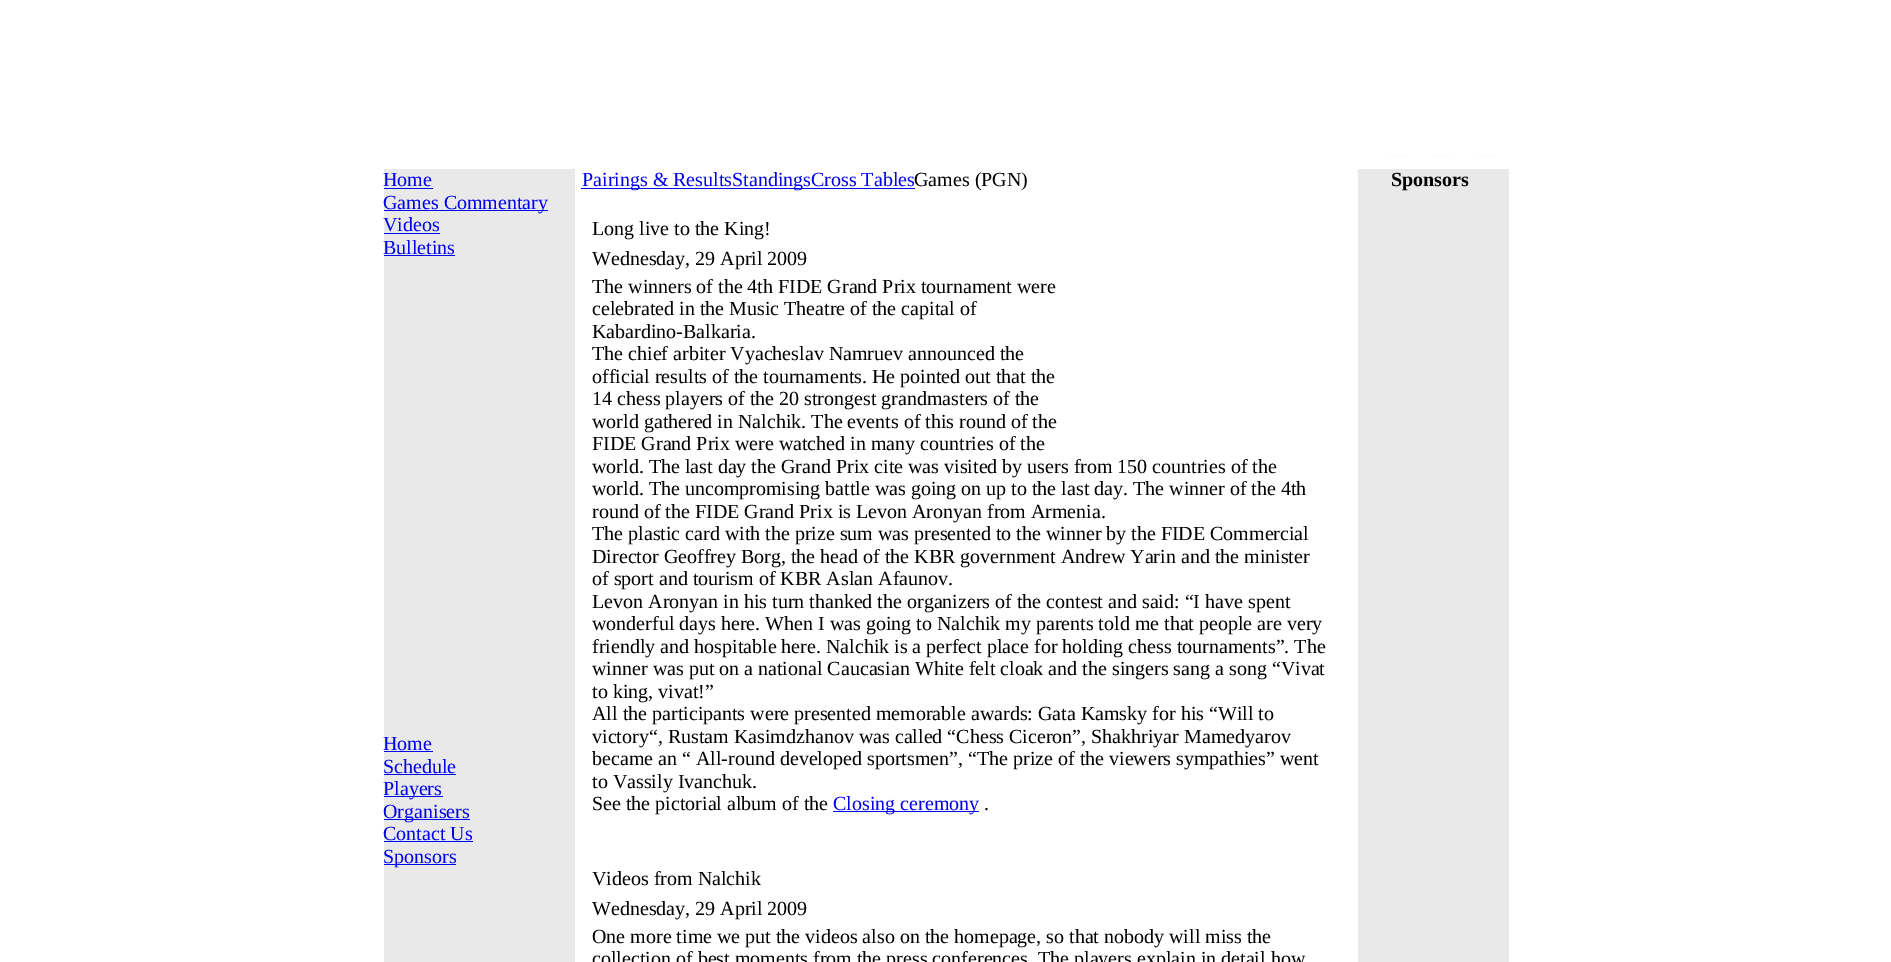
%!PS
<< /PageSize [1891 962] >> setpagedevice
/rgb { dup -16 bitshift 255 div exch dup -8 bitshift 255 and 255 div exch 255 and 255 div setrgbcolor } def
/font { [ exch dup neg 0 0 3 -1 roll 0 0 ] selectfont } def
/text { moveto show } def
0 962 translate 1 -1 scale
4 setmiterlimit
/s1 { /LiberationSerif-Regular 20 font 16#0000EE rgb } def
/s2 { /LiberationSerif-Regular 20 font 16#000000 rgb } def
/s3 { /LiberationSerif-Bold 20 font 16#000000 rgb } def
16#FFFFFF rgb
0 0 1891 962 rectfill
16#FAFAFA rgb
1389 155 20 1 rectfill
1433 155 21 1 rectfill
1478 155 18 1 rectfill
16#E9E9E9 rgb
384 169 191 793 rectfill
s1
(Home) 383 186 text
384 188 49 1 rectfill
384 210 164 1 rectfill
(Games Commentary) 383 209 text
(Videos) 383 231 text
384 233 56 1 rectfill
(Bulletins) 383 254 text
384 255 71 1 rectfill
(Home) 383 750 text
384 751 49 1 rectfill
(Schedule) 383 773 text
384 774 72 1 rectfill
384 796 59 1 rectfill
(Players) 383 795 text
384 819 86 1 rectfill
(Organisers) 383 818 text
(Contact Us) 383 840 text
384 841 89 1 rectfill
384 864 72 1 rectfill
(Sponsors) 383 863 text
581 188 334 1 rectfill
(Pairings & ResultsStandingsCross Tables) 582 186 text
s2
(Games \(PGN\)) 914 186 text
(Long live to the King!) 592 235 text
(Wednesday, 29 April 2009) 592 265 text
(The winners of the 4th FIDE Grand Prix tournament were) 592 293 text
(celebrated in the Music Theatre of the capital of) 592 315 text
(Kabardino-Balkaria.) 592 338 text
(The chief arbiter Vyacheslav Namruev announced the) 592 360 text
(official results of the tournaments. He pointed out that the) 592 383 text
(14 chess players of the 20 strongest grandmasters of the) 592 405 text
(world gathered in Nalchik. The events of this round of the) 592 428 text
(FIDE Grand Prix were watched in many countries of the) 592 450 text
(world. The last day the Grand Prix cite was visited by users from 150 countries of the) 592 473 text
(world. The uncompromising battle was going on up to the last day. The winner of the 4th) 592 495 text
(round of the FIDE Grand Prix is Levon Aronyan from Armenia.) 592 518 text
(The plastic card with the prize sum was presented to the winner by the FIDE Commercial) 592 540 text
(Director Geoffrey Borg, the head of the KBR government Andrew Yarin and the minister) 592 563 text
(of sport and tourism of KBR Aslan Afaunov.) 592 585 text
(Levon Aronyan in his turn thanked the organizers of the contest and said: “I have spent) 592 608 text
(wonderful days here. When I was going to Nalchik my parents told me that people are very) 592 630 text
(friendly and hospitable here. Nalchik is a perfect place for holding chess tournaments”. The) 592 653 text
(winner was put on a national Caucasian White felt cloak and the singers sang a song “Vivat) 592 675 text
(to king, vivat!”) 592 698 text
(All the participants were presented memorable awards: Gata Kamsky for his “Will to) 592 720 text
(victory“, Rustam Kasimdzhanov was called “Chess Ciceron”, Shakhriyar Mamedyarov) 592 743 text
(became an “ All-round developed sportsmen”, “The prize of the viewers sympathies” went) 592 765 text
(to Vassily Ivanchuk.) 592 788 text
(See the pictorial album of the) 592 810 text
16#0000EE rgb
833 811 146 1 rectfill
(Closing ceremony) 833 810 text
s2
(.) 984 810 text
(Videos from Nalchik) 592 885 text
(Wednesday, 29 April 2009) 592 915 text
(One more time we put the videos also on the homepage, so that nobody will miss the) 592 943 text
(collection of best moments from the press conferences. The players explain in detail how) 592 965 text
16#E9E9E9 rgb
1358 169 151 793 rectfill
s3
(Sponsors) 1391 186 text
showpage
